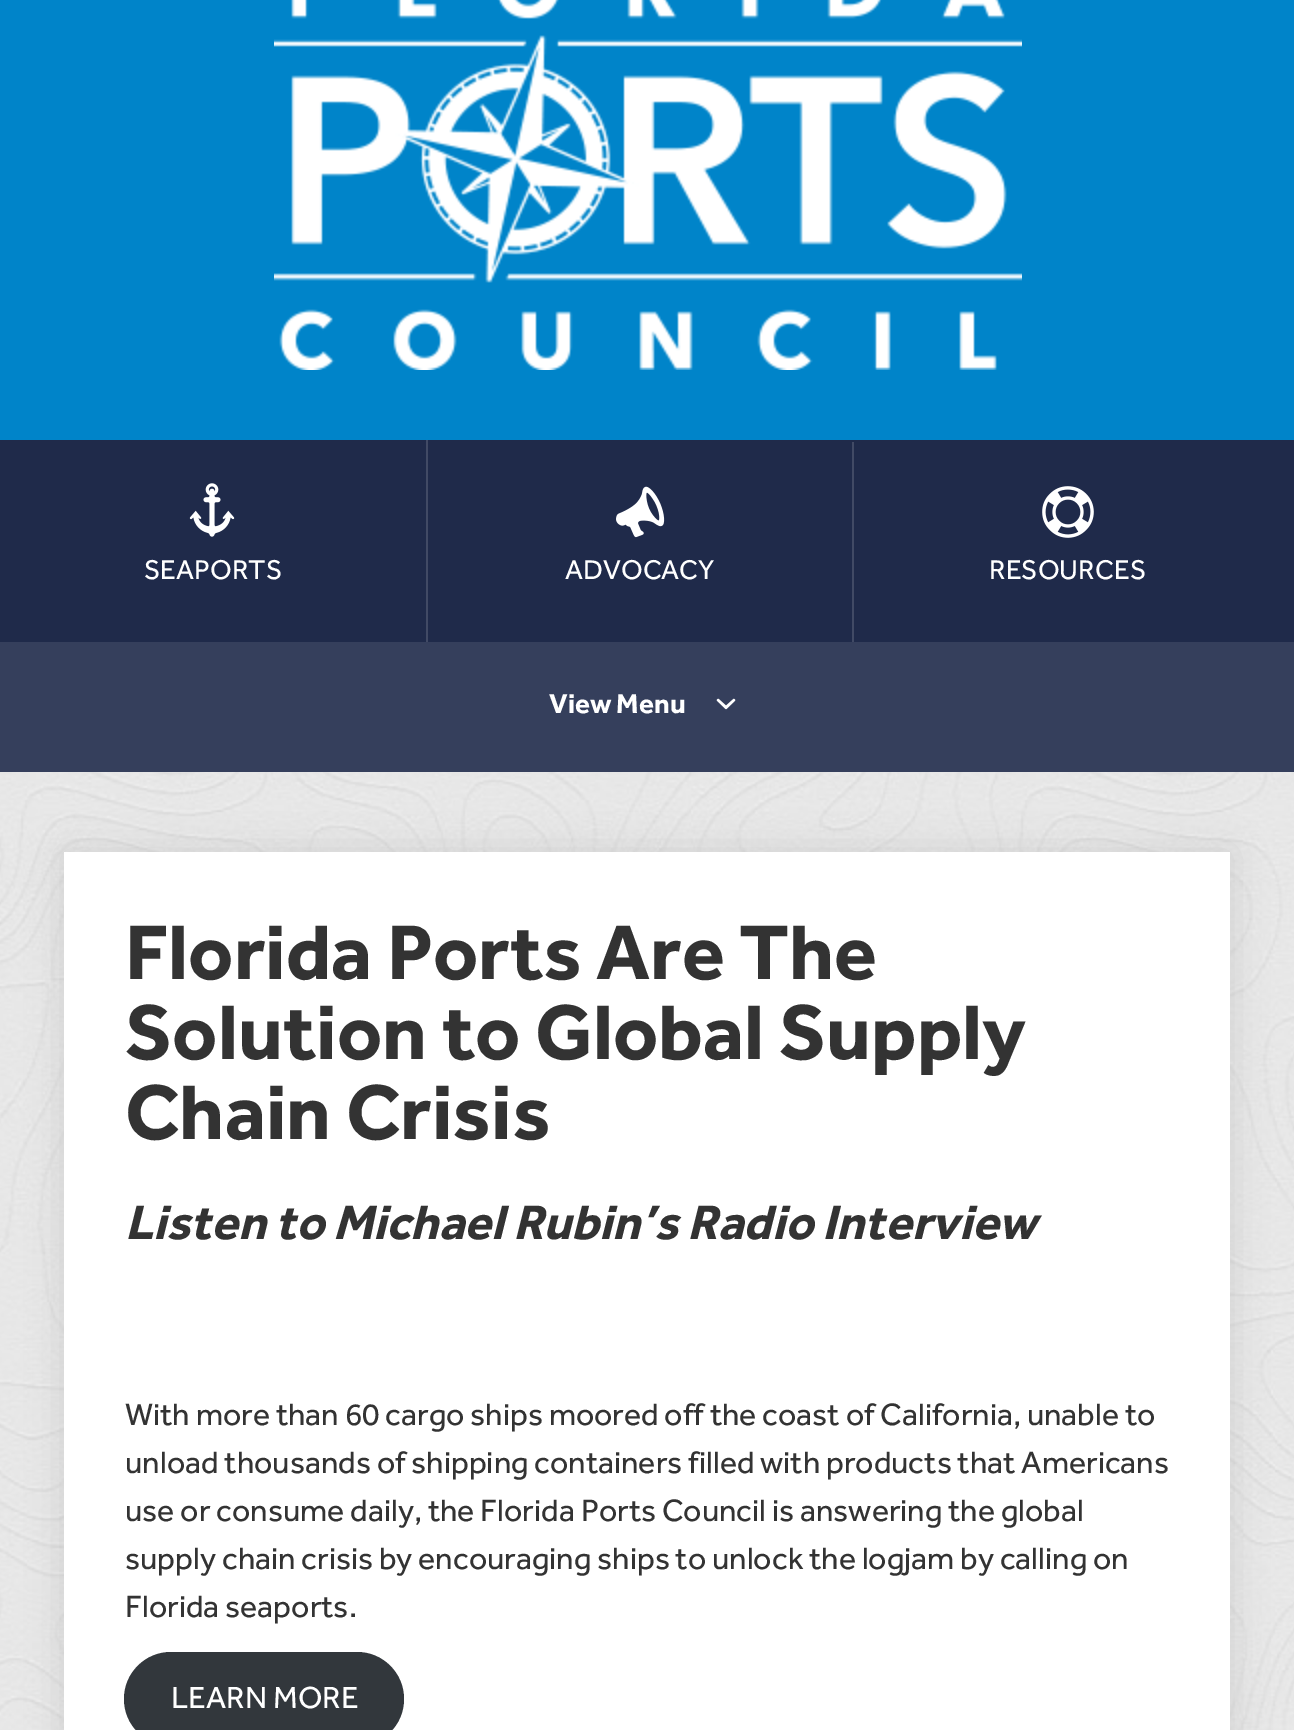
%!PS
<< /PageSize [1294 1730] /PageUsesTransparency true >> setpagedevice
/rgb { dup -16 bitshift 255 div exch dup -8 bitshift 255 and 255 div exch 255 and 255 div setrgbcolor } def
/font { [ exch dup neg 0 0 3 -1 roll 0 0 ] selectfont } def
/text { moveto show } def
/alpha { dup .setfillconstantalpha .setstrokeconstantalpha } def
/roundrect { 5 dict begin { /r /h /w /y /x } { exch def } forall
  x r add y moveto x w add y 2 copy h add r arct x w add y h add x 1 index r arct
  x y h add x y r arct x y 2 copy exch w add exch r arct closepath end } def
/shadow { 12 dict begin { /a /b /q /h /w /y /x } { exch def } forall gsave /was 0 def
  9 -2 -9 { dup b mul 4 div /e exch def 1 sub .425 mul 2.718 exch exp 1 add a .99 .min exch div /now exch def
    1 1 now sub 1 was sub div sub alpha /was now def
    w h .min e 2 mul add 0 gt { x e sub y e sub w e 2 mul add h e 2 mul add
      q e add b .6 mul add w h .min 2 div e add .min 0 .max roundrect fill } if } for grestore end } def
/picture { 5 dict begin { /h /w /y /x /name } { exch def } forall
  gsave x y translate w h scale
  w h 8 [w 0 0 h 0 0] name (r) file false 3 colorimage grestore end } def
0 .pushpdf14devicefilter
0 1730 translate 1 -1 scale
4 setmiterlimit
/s1 { /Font-Regular 28 font 16#FFFFFF rgb } def
/s2 { /Font-Bold 28 font 16#FFFFFF rgb } def
/s3 { /Font-Bold 80 font 16#333333 rgb } def
/s4 { /Font-BoldItalic 50 font 16#333333 rgb } def
/s5 { /Font-Regular 32 font 16#333333 rgb } def
/s6 { /Font-Regular 31.5 font 16#FFFFFF rgb } def
16#FFFFFF rgb
0 0 1294 1730 rectfill
(pic1.raw) 0 772 1294 958 picture
16#0084C9 rgb
0 0 1294 440 rectfill
(pic2.raw) 274 0 748 370 picture
16#1F2A4A rgb
0 440 1294 202 rectfill
16#414A65 rgb
426 440 2 202 rectfill
(pic3.raw) 189 483 46 54 picture
s1
(SEAPORTS) 144 579 text
16#414A65 rgb
852 442 2 200 rectfill
(pic4.raw) 616 486 49 52 picture
s1
(ADVOCACY) 565 579 text
(pic5.raw) 1042 486 52 52 picture
(RESOURCES) 989 579 text
16#353F5C rgb
0 642 1294 130 rectfill
s2
(View Menu) 549 713 text
(pic6.raw) 716 698 20 12 picture
16#000000 rgb
64 852 1166 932 0 18 0.1 shadow
16#FFFFFF rgb
64 852 1166 878 rectfill
s3
(Florida Ports Are The) 125 979 text
(Solution to Global Supply) 125 1059 text
(Chain Crisis) 125 1139 text
s4
(Listen to Michael Rubin’s Radio Interview) 125 1239 text
s5
(With more than 60 cargo ships moored off the coast of California, unable to) 125 1425 text
(unload thousands of shipping containers filled with products that Americans) 125 1473 text
(use or consume daily, the Florida Ports Council is answering the global) 125 1521 text
(supply chain crisis by encouraging ships to unlock the logjam by calling on) 125 1569 text
(Florida seaports.) 125 1617 text
16#32373C rgb
124 1652 280 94 47 roundrect fill
s6
(LEARN MORE) 171 1708 text
.poppdf14devicefilter showpage
